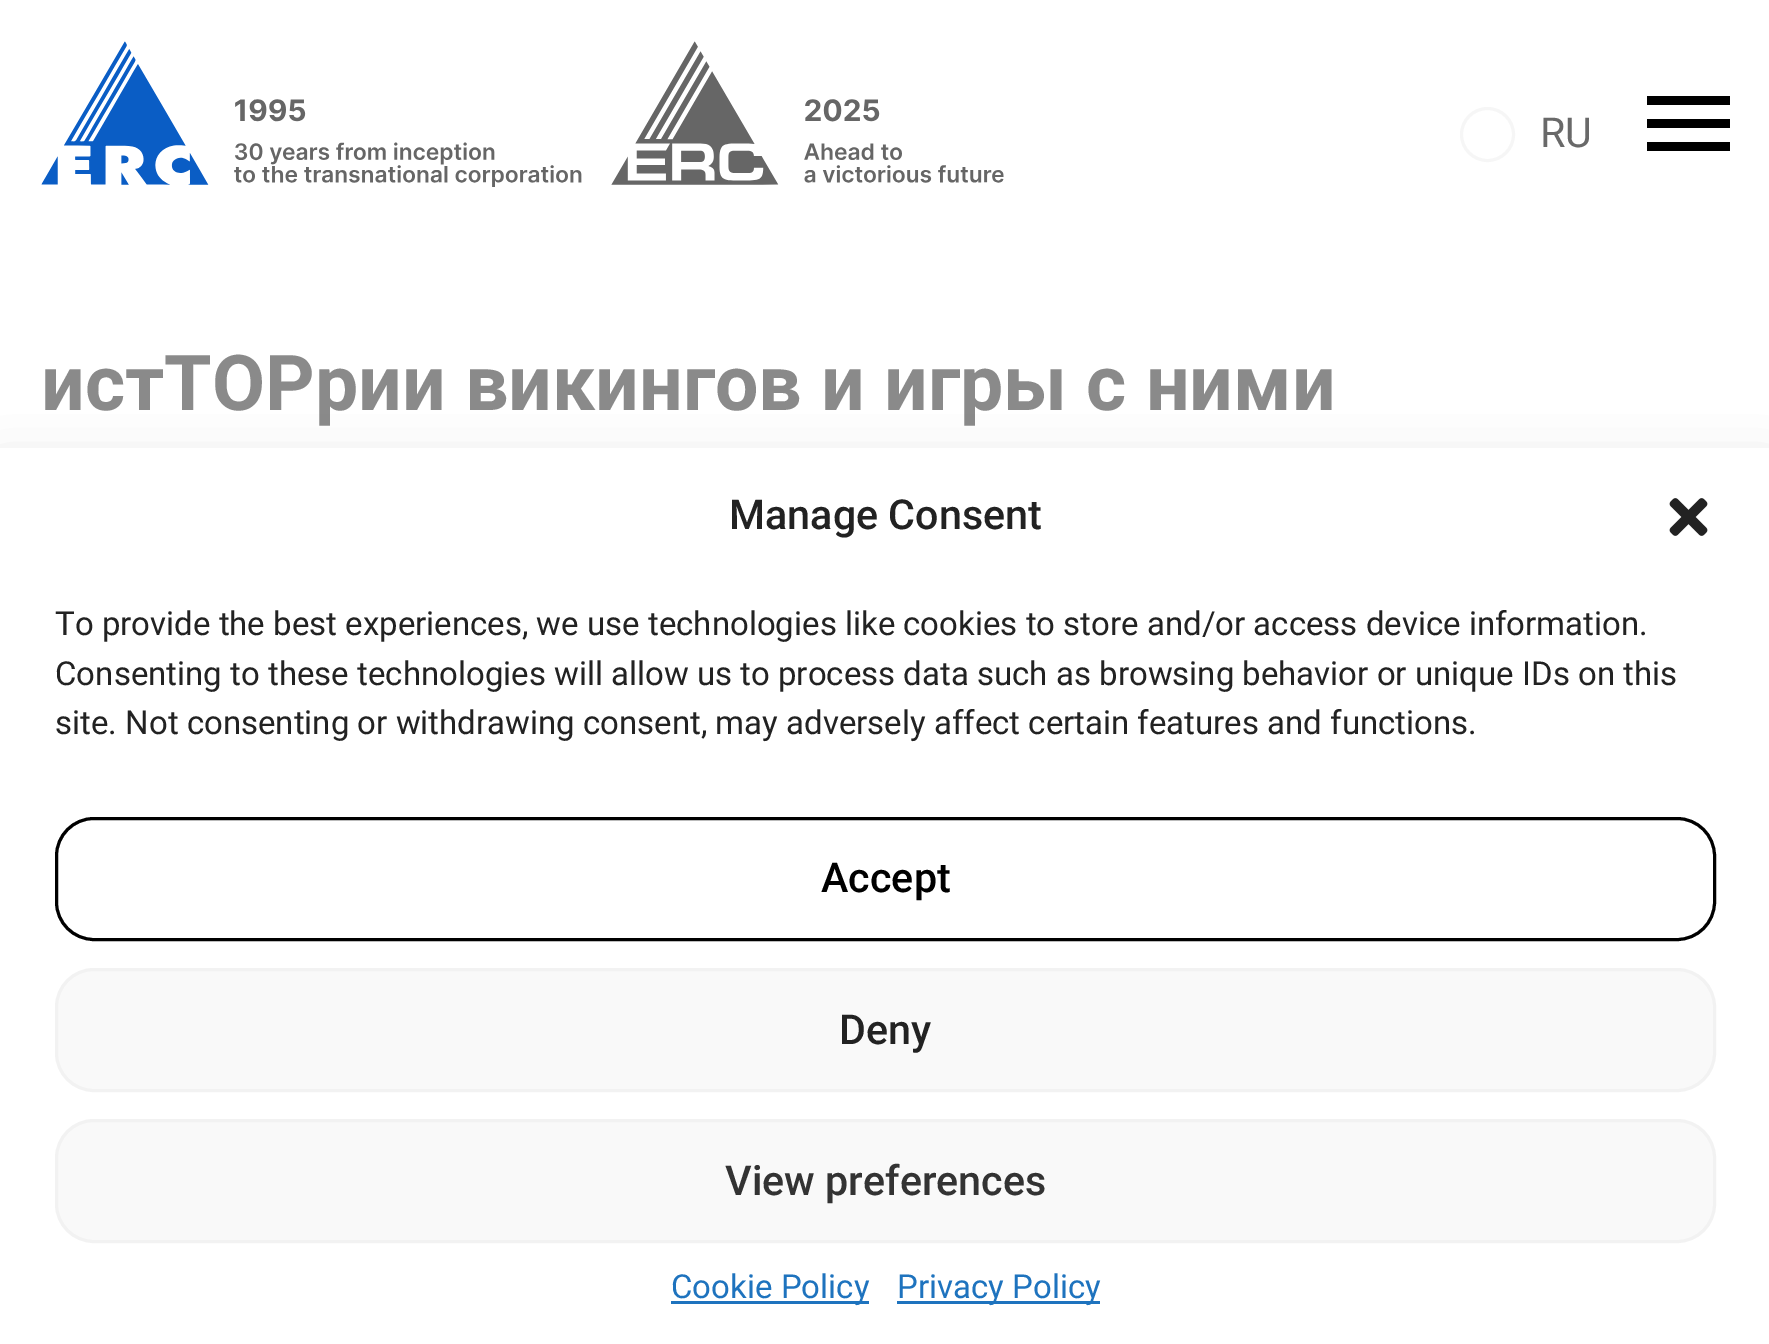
%!PS
<< /PageSize [1769 1344] /PageUsesTransparency true >> setpagedevice
/rgb { dup -16 bitshift 255 div exch dup -8 bitshift 255 and 255 div exch 255 and 255 div setrgbcolor } def
/font { [ exch dup neg 0 0 3 -1 roll 0 0 ] selectfont } def
/text { moveto show } def
/alpha { dup .setfillconstantalpha .setstrokeconstantalpha } def
/circle { newpath 0 360 arc closepath } def
/roundrect { 5 dict begin { /r /h /w /y /x } { exch def } forall
  x r add y moveto x w add y 2 copy h add r arct x w add y h add x 1 index r arct
  x y h add x y r arct x y 2 copy exch w add exch r arct closepath end } def
/shadow { 12 dict begin { /a /b /q /h /w /y /x } { exch def } forall gsave /was 0 def
  9 -2 -9 { dup b mul 4 div /e exch def 1 sub .425 mul 2.718 exch exp 1 add a .99 .min exch div /now exch def
    1 1 now sub 1 was sub div sub alpha /was now def
    w h .min e 2 mul add 0 gt { x e sub y e sub w e 2 mul add h e 2 mul add
      q e add b .6 mul add w h .min 2 div e add .min 0 .max roundrect fill } if } for grestore end } def
/picture { 5 dict begin { /h /w /y /x /name } { exch def } forall
  gsave x y translate w h scale
  w h 8 [w 0 0 h 0 0] name (r) file false 3 colorimage grestore end } def
0 .pushpdf14devicefilter
0 1344 translate 1 -1 scale
4 setmiterlimit
/s1 { /Roboto-Regular 41.25 font 16#696969 rgb } def
/s2 { /Roboto-Bold 77 font 16#8A8A8A rgb } def
/s3 { /Roboto-Medium 41.25 font 16#222222 rgb } def
/s4 { /Roboto-Regular 33 font 16#222222 rgb } def
/s5 { /Roboto-Medium 41.25 font 16#000000 rgb } def
/s6 { /Roboto-Medium 41.25 font 16#333333 rgb } def
/s7 { /Roboto-Regular 33 font 16#1E73BE rgb } def
16#FFFFFF rgb
0 0 1769 1344 rectfill
(pic1.raw) 41 41 963 146 picture
16#F6F6F6 rgb
3 setlinewidth
1487.5 134.5 26 circle stroke
s1
(RU) 1540 147 text
16#000000 rgb
1647 96 83 9 rectfill
1647 119 83 9 rectfill
1647 142 83 9 rectfill
s2
(истТОРрии викингов и игры с ними) 41 410 text
16#000000 rgb
0 476 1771 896 0 27.5 0.19 shadow
16#FFFFFF rgb
0 448 1769 896 rectfill
s3
(Manage Consent) 729 529 text
(pic2.raw) 1669 498 39 38 picture
s4
(To provide the best experiences, we use technologies like cookies to store and/or access device information.) 55 635 text
(Consenting to these technologies will allow us to process data such as browsing behavior or unique IDs on this) 55 685 text
(site. Not consenting or withdrawing consent, may adversely affect certain features and functions.) 55 734 text
16#000000 rgb
56.5 818.5 1658 121 37.5 roundrect stroke
s5
(Accept) 821 892 text
16#F9F9F9 rgb
56.5 969.5 1658 121 37.5 roundrect gsave fill grestore
16#F2F2F2 rgb
stroke
s3
(Deny) 839 1044 text
16#F9F9F9 rgb
56.5 1120.5 1658 121 37.5 roundrect gsave fill grestore
16#F2F2F2 rgb
stroke
s6
(View preferences) 725 1195 text
16#1E73BE rgb
671 1301 198 3 rectfill
s7
(Cookie Policy) 671 1298 text
897 1301 203 3 rectfill
(Privacy Policy) 897 1298 text
.poppdf14devicefilter showpage
